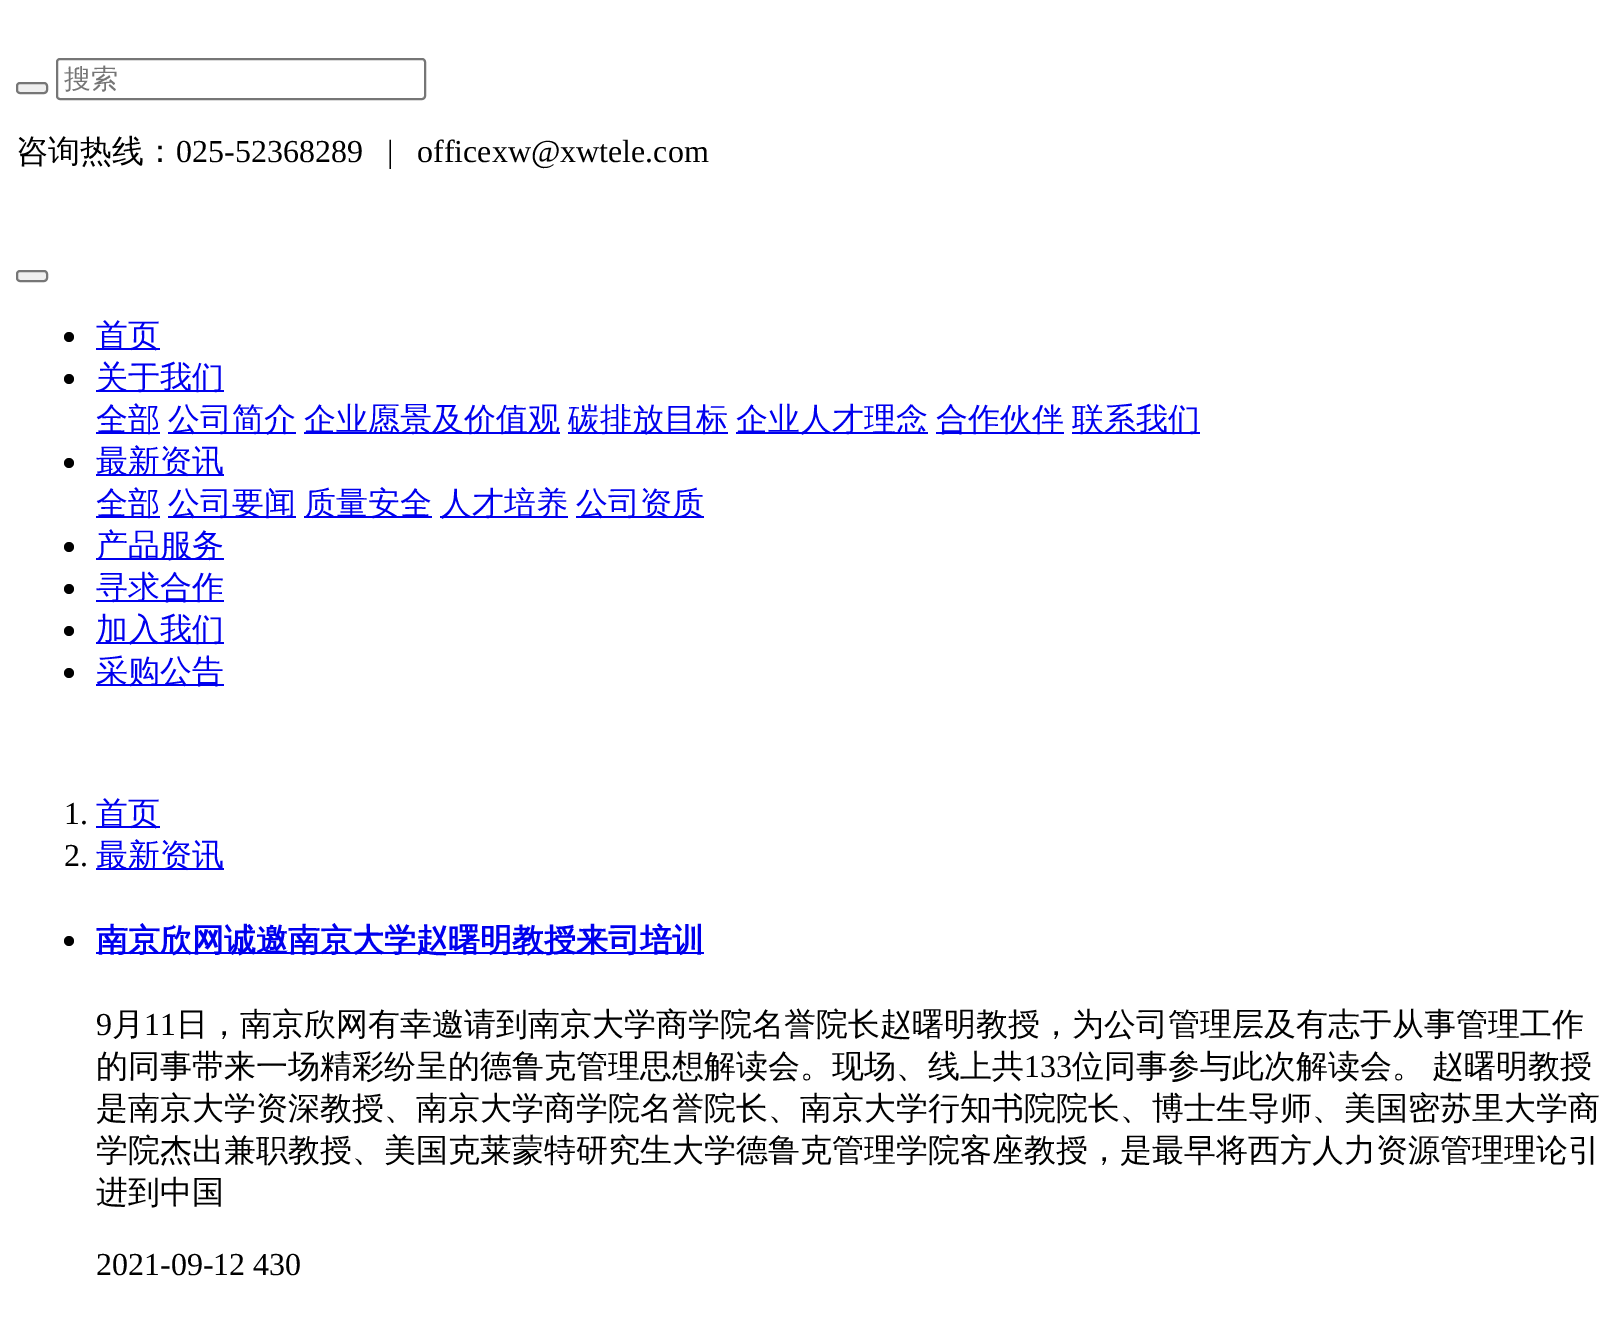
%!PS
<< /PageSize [1620 1317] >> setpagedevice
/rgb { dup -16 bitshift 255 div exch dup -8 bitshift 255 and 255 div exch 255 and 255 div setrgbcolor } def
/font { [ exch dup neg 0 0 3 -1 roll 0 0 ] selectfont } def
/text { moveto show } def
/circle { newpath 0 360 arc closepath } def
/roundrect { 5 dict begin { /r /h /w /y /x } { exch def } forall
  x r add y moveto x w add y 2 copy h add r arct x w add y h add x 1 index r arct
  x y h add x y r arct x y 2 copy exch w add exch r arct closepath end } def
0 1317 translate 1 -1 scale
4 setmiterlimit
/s1 { /WenQuanYiZenHei-Medium 27 font 16#757575 rgb } def
/s2 { /WenQuanYiZenHei-Medium 32 font 16#000000 rgb } def
/s3 { /LiberationSerif-Regular 32 font 16#000000 rgb } def
/s4 { /WenQuanYiZenHei-Medium 32 font 16#0000EE rgb } def
/s5 { /WenQuanYiZenHei-Bold 32 font 16#0000EE rgb } def
16#FFFFFF rgb
0 0 1620 1317 rectfill
16#EFEFEF rgb
17 83 30 10 3 roundrect gsave fill grestore
16#767676 rgb
2 setlinewidth
stroke
57 59 368 40 3 roundrect stroke
s1
(搜索) 64 88 text
s2
(咨询热线：) 16 162 text
s3
(025-52368289) 176 162 text
(|) 387 162 text
(officexw@xwtele.com) 417 162 text
16#EFEFEF rgb
17 271 30 10 3 roundrect gsave fill grestore
16#767676 rgb
stroke
16#000000 rgb
69 337 5 circle fill
16#0000EE rgb
96 348 64 2 rectfill
s4
(首页) 96 346 text
16#000000 rgb
69 379 5 circle fill
16#0000EE rgb
96 390 128 2 rectfill
(关于我们) 96 388 text
96 432 64 2 rectfill
(全部) 96 430 text
168 432 128 2 rectfill
(公司简介) 168 430 text
304 432 256 2 rectfill
(企业愿景及价值观) 304 430 text
568 432 160 2 rectfill
(碳排放目标) 568 430 text
736 432 192 2 rectfill
(企业人才理念) 736 430 text
936 432 128 2 rectfill
(合作伙伴) 936 430 text
1072 432 128 2 rectfill
(联系我们) 1072 430 text
16#000000 rgb
69 463 5 circle fill
16#0000EE rgb
96 474 128 2 rectfill
(最新资讯) 96 472 text
96 516 64 2 rectfill
(全部) 96 514 text
168 516 128 2 rectfill
(公司要闻) 168 514 text
304 516 128 2 rectfill
(质量安全) 304 514 text
440 516 128 2 rectfill
(人才培养) 440 514 text
576 516 128 2 rectfill
(公司资质) 576 514 text
16#000000 rgb
69 547 5 circle fill
16#0000EE rgb
96 558 128 2 rectfill
(产品服务) 96 556 text
16#000000 rgb
69 589 5 circle fill
16#0000EE rgb
96 600 128 2 rectfill
(寻求合作) 96 598 text
16#000000 rgb
69 631 5 circle fill
16#0000EE rgb
96 642 128 2 rectfill
(加入我们) 96 640 text
16#000000 rgb
69 673 5 circle fill
16#0000EE rgb
96 684 128 2 rectfill
(采购公告) 96 682 text
s3
(1.) 64 824 text
16#0000EE rgb
96 826 64 2 rectfill
s4
(首页) 96 824 text
s3
(2.) 64 866 text
16#0000EE rgb
96 868 128 2 rectfill
s4
(最新资讯) 96 866 text
16#000000 rgb
69 941 5 circle fill
16#0000EE rgb
96 952 608 2 rectfill
s5
(南京欣网诚邀南京大学赵曙明教授来司培训) 96 951 text
s3
(9) 96 1035 text
s2
(月) 112 1035 text
s3
(11) 144 1035 text
s2
(日，南京欣网有幸邀请到南京大学商学院名誉院长赵曙明教授，为公司管理层及有志于从事管理工作) 176 1035 text
(的同事带来一场精彩纷呈的德鲁克管理思想解读会。现场、线上共) 96 1077 text
s3
(133) 1024 1077 text
s2
(位同事参与此次解读会。) 1072 1077 text
(赵曙明教授) 1432 1077 text
(是南京大学资深教授、南京大学商学院名誉院长、南京大学行知书院院长、博士生导师、美国密苏里大学商) 96 1119 text
(学院杰出兼职教授、美国克莱蒙特研究生大学德鲁克管理学院客座教授，是最早将西方人力资源管理理论引) 96 1161 text
(进到中国) 96 1203 text
s3
(2021-09-12 430) 96 1275 text
showpage
